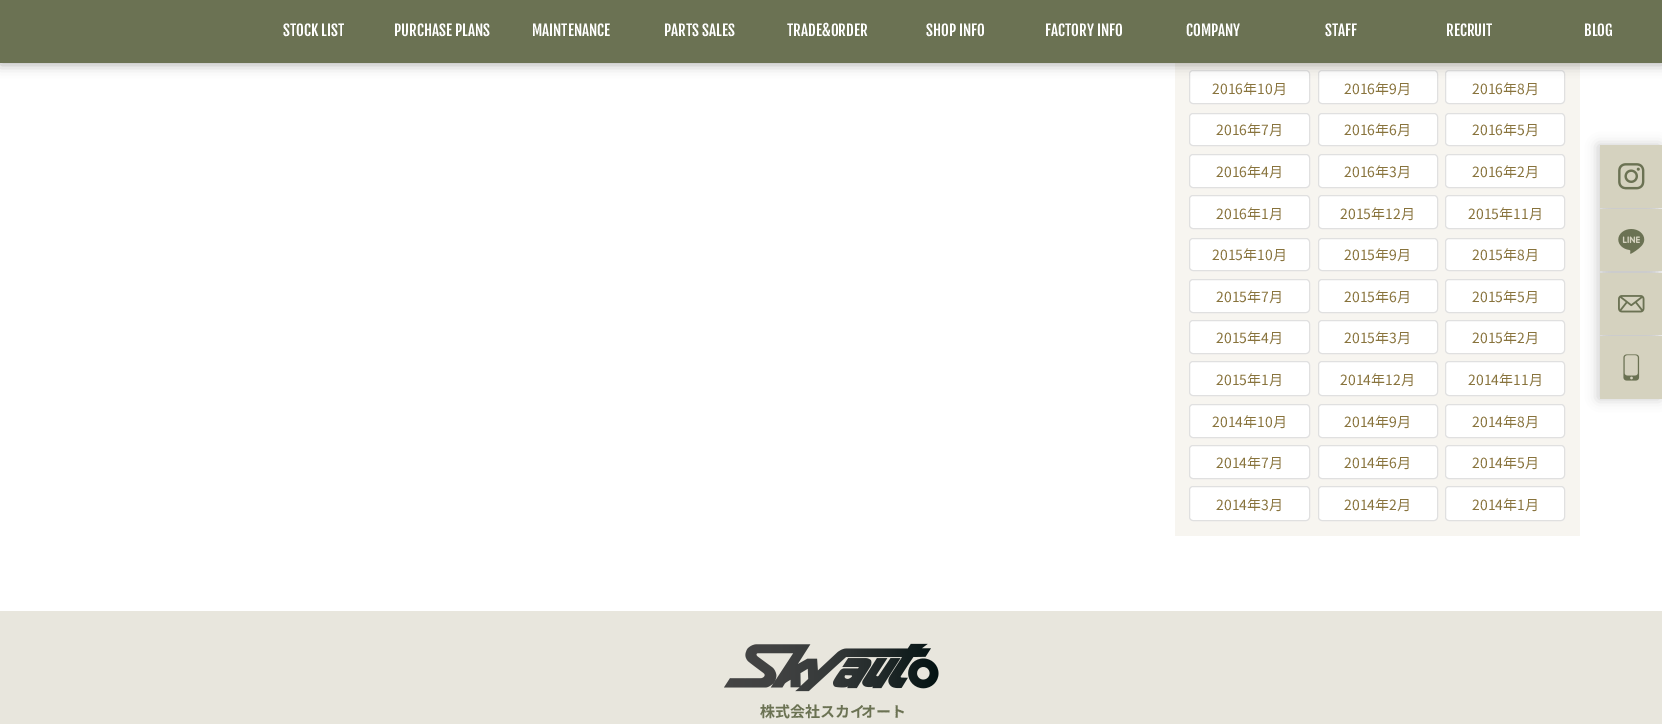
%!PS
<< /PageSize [1662 724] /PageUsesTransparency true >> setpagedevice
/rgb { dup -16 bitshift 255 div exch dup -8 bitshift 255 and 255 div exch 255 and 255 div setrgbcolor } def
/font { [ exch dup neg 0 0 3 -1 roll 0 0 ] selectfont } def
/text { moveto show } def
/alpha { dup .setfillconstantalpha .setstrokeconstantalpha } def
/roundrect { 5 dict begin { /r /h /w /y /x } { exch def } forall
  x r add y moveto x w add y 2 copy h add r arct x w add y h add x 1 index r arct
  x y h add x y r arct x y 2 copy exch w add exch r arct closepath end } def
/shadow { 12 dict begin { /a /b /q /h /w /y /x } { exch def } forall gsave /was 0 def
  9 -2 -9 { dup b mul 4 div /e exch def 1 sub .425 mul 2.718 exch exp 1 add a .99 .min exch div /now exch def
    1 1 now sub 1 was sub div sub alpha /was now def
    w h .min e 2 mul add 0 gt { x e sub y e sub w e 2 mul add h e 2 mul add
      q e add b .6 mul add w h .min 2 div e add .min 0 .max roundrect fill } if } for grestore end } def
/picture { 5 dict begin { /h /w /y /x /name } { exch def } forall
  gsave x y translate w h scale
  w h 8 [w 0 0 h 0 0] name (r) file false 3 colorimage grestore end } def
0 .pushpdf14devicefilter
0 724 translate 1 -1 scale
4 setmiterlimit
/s1 { /FjallaOne-Regular 15 font 16#FFFFFF rgb } def
/s2 { /NotoSansJP-Regular 14 font 16#88733C rgb } def
/s3 { /NotoSansJP-Bold 15 font 16#6B7253 rgb } def
16#E8E6DD rgb
0 0 1662 724 rectfill
16#FFFFFF rgb
0 63 1662 548 rectfill
16#F7F5F0 rgb
1175 63 405 473 rectfill
16#FFFFFF rgb
1189.5 70.5 120 33 3.5 roundrect gsave fill grestore
16#E0E0E0 rgb
stroke
16#FFFFFF rgb
1318.5 70.5 119 33 3.5 roundrect gsave fill grestore
16#E0E0E0 rgb
stroke
16#FFFFFF rgb
1445.5 70.5 119 33 3.5 roundrect gsave fill grestore
16#E0E0E0 rgb
stroke
16#000000 rgb
0 3 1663 62 0 6 0.3 shadow
16#6B7253 rgb
0 0 1662 63 rectfill
s1
(STOCK LIST) 283 36 text
(PURCHASE PLANS) 394 36 text
(MAINTENANCE) 532 36 text
(PARTS SALES) 664 36 text
(TRADE&ORDER) 787 36 text
(SHOP INFO) 926 36 text
(FACTORY INFO) 1045 36 text
(COMPANY) 1186 36 text
(STAFF) 1325 36 text
(RECRUIT) 1446 36 text
(BLOG) 1584 36 text
16#000000 rgb
1598 145 62 254 0 6 0.2 shadow
16#D5D2BF rgb
1600 145 62 63 rectfill
(pic1.raw) 1618 163 27 27 picture
1600 209 62 62 rectfill
(pic2.raw) 1618 229 27 25 picture
1600 273 62 62 rectfill
(pic3.raw) 1618 295 27 18 picture
1600 336 62 63 rectfill
(pic4.raw) 1623 354 17 27 picture
s2
(2016年10月) 1212 94 text
(2016年9月) 1344 94 text
(2016年8月) 1472 94 text
16#FFFFFF rgb
1189.5 113.5 120 32 3.5 roundrect gsave fill grestore
16#E0E0E0 rgb
stroke
s2
(2016年7月) 1216 135 text
16#FFFFFF rgb
1318.5 113.5 119 32 3.5 roundrect gsave fill grestore
16#E0E0E0 rgb
stroke
s2
(2016年6月) 1344 135 text
16#FFFFFF rgb
1445.5 113.5 119 32 3.5 roundrect gsave fill grestore
16#E0E0E0 rgb
stroke
s2
(2016年5月) 1472 135 text
16#FFFFFF rgb
1189.5 154.5 120 33 3.5 roundrect gsave fill grestore
16#E0E0E0 rgb
stroke
s2
(2016年4月) 1216 177 text
16#FFFFFF rgb
1318.5 154.5 119 33 3.5 roundrect gsave fill grestore
16#E0E0E0 rgb
stroke
s2
(2016年3月) 1344 177 text
16#FFFFFF rgb
1445.5 154.5 119 33 3.5 roundrect gsave fill grestore
16#E0E0E0 rgb
stroke
s2
(2016年2月) 1472 177 text
16#FFFFFF rgb
1189.5 195.5 120 33 3.5 roundrect gsave fill grestore
16#E0E0E0 rgb
stroke
s2
(2016年1月) 1216 219 text
16#FFFFFF rgb
1318.5 195.5 119 33 3.5 roundrect gsave fill grestore
16#E0E0E0 rgb
stroke
s2
(2015年12月) 1340 219 text
16#FFFFFF rgb
1445.5 195.5 119 33 3.5 roundrect gsave fill grestore
16#E0E0E0 rgb
stroke
s2
(2015年11月) 1468 219 text
16#FFFFFF rgb
1189.5 238.5 120 32 3.5 roundrect gsave fill grestore
16#E0E0E0 rgb
stroke
s2
(2015年10月) 1212 260 text
16#FFFFFF rgb
1318.5 238.5 119 32 3.5 roundrect gsave fill grestore
16#E0E0E0 rgb
stroke
s2
(2015年9月) 1344 260 text
16#FFFFFF rgb
1445.5 238.5 119 32 3.5 roundrect gsave fill grestore
16#E0E0E0 rgb
stroke
s2
(2015年8月) 1472 260 text
16#FFFFFF rgb
1189.5 279.5 120 33 3.5 roundrect gsave fill grestore
16#E0E0E0 rgb
stroke
s2
(2015年7月) 1216 302 text
16#FFFFFF rgb
1318.5 279.5 119 33 3.5 roundrect gsave fill grestore
16#E0E0E0 rgb
stroke
s2
(2015年6月) 1344 302 text
16#FFFFFF rgb
1445.5 279.5 119 33 3.5 roundrect gsave fill grestore
16#E0E0E0 rgb
stroke
s2
(2015年5月) 1472 302 text
16#FFFFFF rgb
1189.5 320.5 120 33 3.5 roundrect gsave fill grestore
16#E0E0E0 rgb
stroke
s2
(2015年4月) 1216 343 text
16#FFFFFF rgb
1318.5 320.5 119 33 3.5 roundrect gsave fill grestore
16#E0E0E0 rgb
stroke
s2
(2015年3月) 1344 343 text
16#FFFFFF rgb
1445.5 320.5 119 33 3.5 roundrect gsave fill grestore
16#E0E0E0 rgb
stroke
s2
(2015年2月) 1472 343 text
16#FFFFFF rgb
1189.5 361.5 120 34 3.5 roundrect gsave fill grestore
16#E0E0E0 rgb
stroke
s2
(2015年1月) 1216 385 text
16#FFFFFF rgb
1318.5 361.5 119 34 3.5 roundrect gsave fill grestore
16#E0E0E0 rgb
stroke
s2
(2014年12月) 1340 385 text
16#FFFFFF rgb
1445.5 361.5 119 34 3.5 roundrect gsave fill grestore
16#E0E0E0 rgb
stroke
s2
(2014年11月) 1468 385 text
16#FFFFFF rgb
1189.5 404.5 120 33 3.5 roundrect gsave fill grestore
16#E0E0E0 rgb
stroke
s2
(2014年10月) 1212 427 text
16#FFFFFF rgb
1318.5 404.5 119 33 3.5 roundrect gsave fill grestore
16#E0E0E0 rgb
stroke
s2
(2014年9月) 1344 427 text
16#FFFFFF rgb
1445.5 404.5 119 33 3.5 roundrect gsave fill grestore
16#E0E0E0 rgb
stroke
s2
(2014年8月) 1472 427 text
16#FFFFFF rgb
1189.5 445.5 120 33 3.5 roundrect gsave fill grestore
16#E0E0E0 rgb
stroke
s2
(2014年7月) 1216 468 text
16#FFFFFF rgb
1318.5 445.5 119 33 3.5 roundrect gsave fill grestore
16#E0E0E0 rgb
stroke
s2
(2014年6月) 1344 468 text
16#FFFFFF rgb
1445.5 445.5 119 33 3.5 roundrect gsave fill grestore
16#E0E0E0 rgb
stroke
s2
(2014年5月) 1472 468 text
16#FFFFFF rgb
1189.5 486.5 120 34 3.5 roundrect gsave fill grestore
16#E0E0E0 rgb
stroke
s2
(2014年3月) 1216 510 text
16#FFFFFF rgb
1318.5 486.5 119 34 3.5 roundrect gsave fill grestore
16#E0E0E0 rgb
stroke
s2
(2014年2月) 1344 510 text
16#FFFFFF rgb
1445.5 486.5 119 34 3.5 roundrect gsave fill grestore
16#E0E0E0 rgb
stroke
s2
(2014年1月) 1472 510 text
(pic5.raw) 724 643 215 49 picture
s3
(株式会社スカイ) 760 717 text
(オート) 861 717 text
.poppdf14devicefilter showpage
